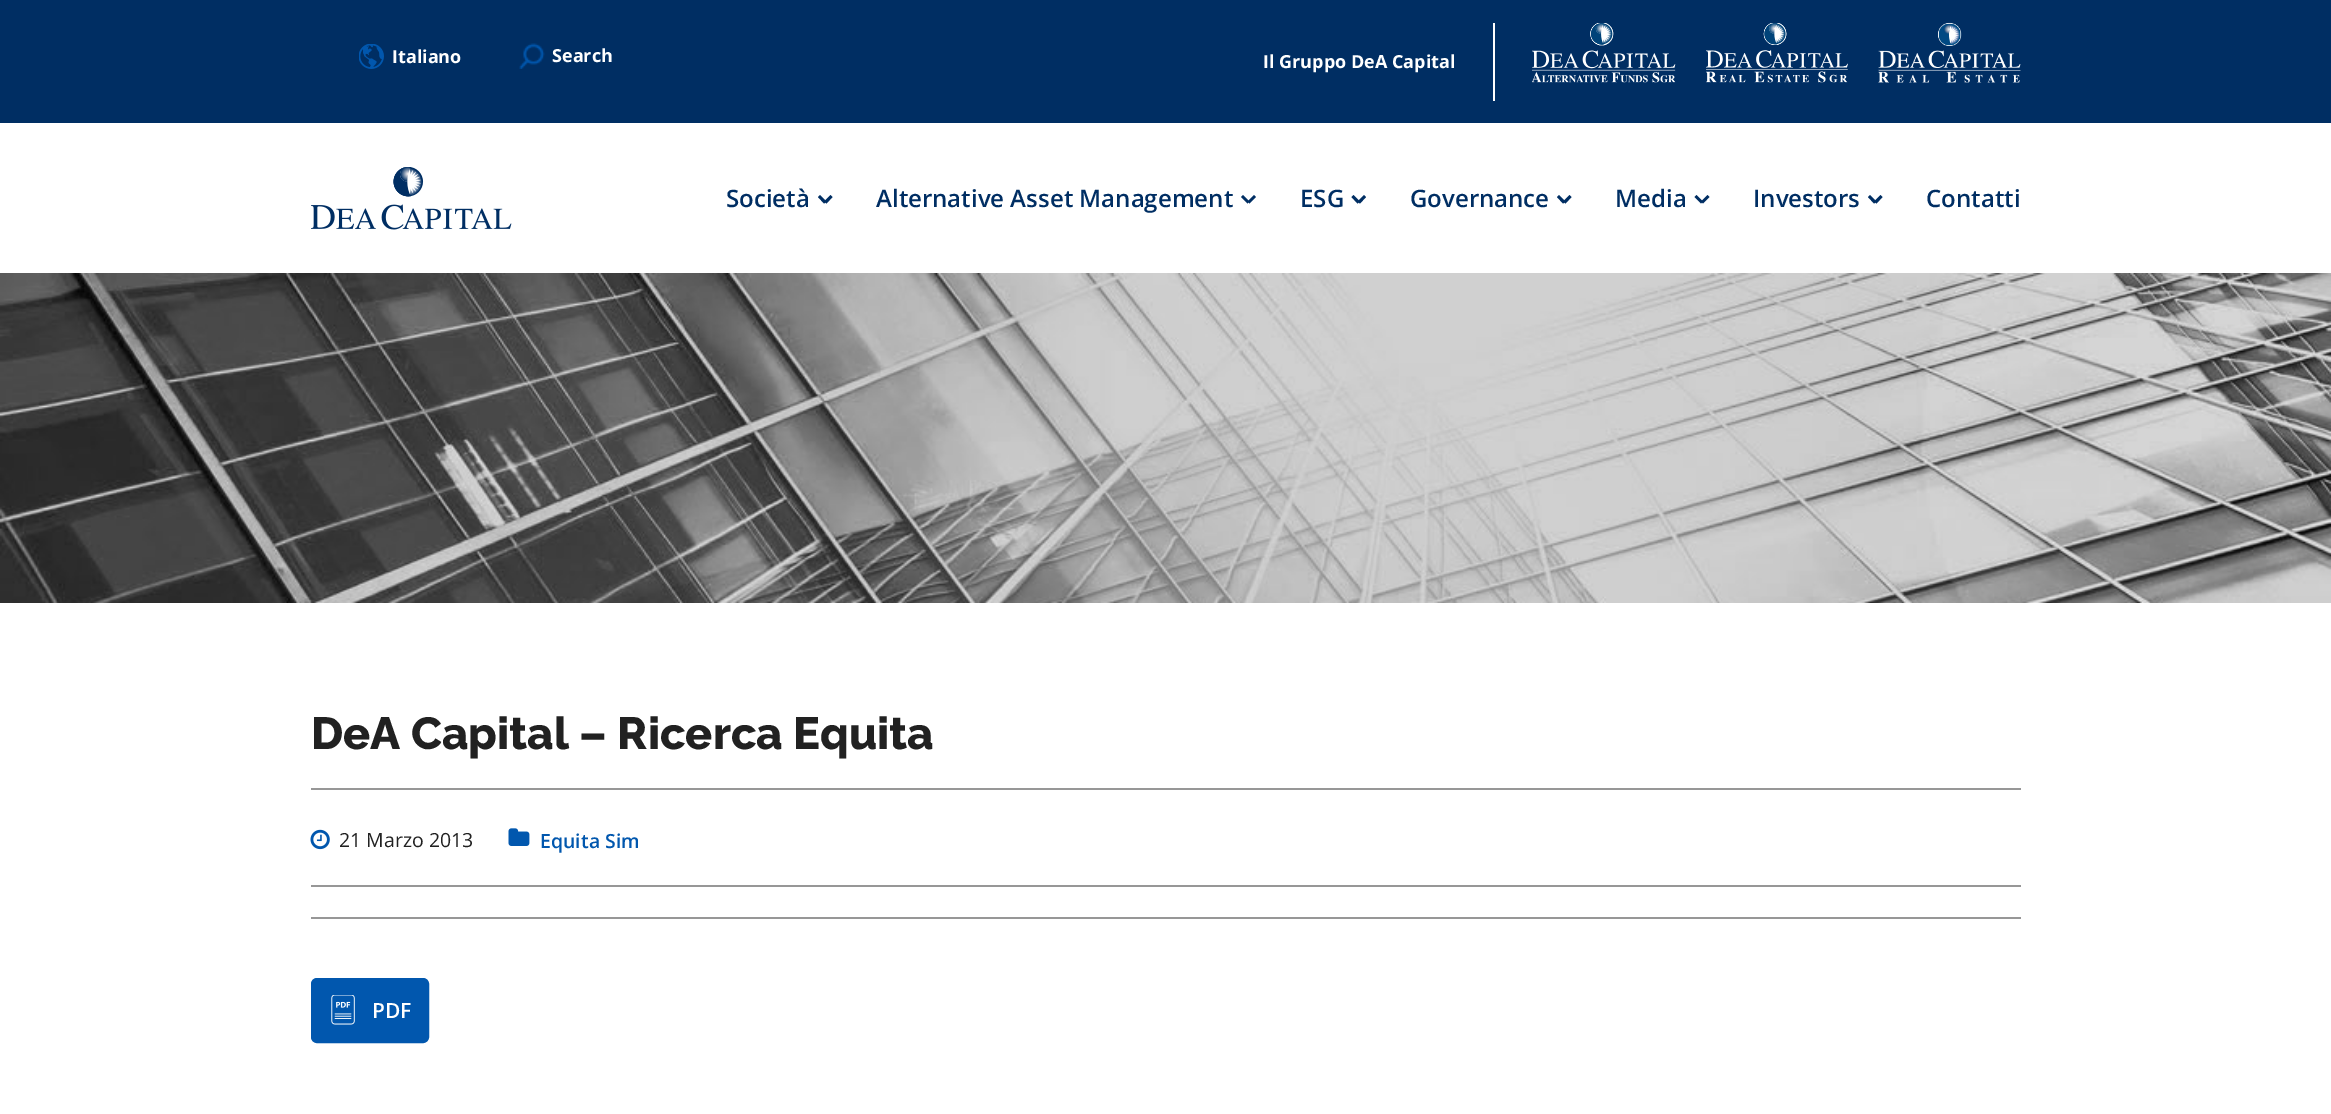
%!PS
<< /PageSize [2331 1114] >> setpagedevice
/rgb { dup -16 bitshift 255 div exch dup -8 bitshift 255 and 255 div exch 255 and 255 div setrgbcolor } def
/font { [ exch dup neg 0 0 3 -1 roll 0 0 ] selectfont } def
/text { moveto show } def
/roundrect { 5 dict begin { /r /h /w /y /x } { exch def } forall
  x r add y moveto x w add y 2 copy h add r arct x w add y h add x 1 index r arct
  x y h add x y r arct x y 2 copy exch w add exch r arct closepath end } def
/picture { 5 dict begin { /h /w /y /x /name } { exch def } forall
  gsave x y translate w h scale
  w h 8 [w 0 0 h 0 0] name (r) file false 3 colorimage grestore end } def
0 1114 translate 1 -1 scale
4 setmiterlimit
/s1 { /OpenSans-Bold 18 font 16#FFFFFF rgb } def
/s2 { /OpenSans-SemiBold 24 font 16#002E63 rgb } def
/s3 { /Raleway-ExtraBold 45 font 16#212121 rgb } def
/s4 { /OpenSans-Regular 19.5 font 16#212121 rgb } def
/s5 { /OpenSans-SemiBold 19.5 font 16#0157AE rgb } def
/s6 { /OpenSans-SemiBold 21 font 16#FFFFFF rgb } def
16#FFFFFF rgb
0 0 2331 1114 rectfill
16#002E63 rgb
0 0 2331 123 rectfill
(pic1.raw) 359 44 25 25 picture
s1
(Italiano) 392 63 text
(pic2.raw) 519 43 26 26 picture
(Search) 552 62 text
(Il Gruppo DeA Capital) 1263 68 text
1493 23 2 78 rectfill
(pic3.raw) 1532 23 144 60 picture
(pic4.raw) 1706 23 142 60 picture
(pic5.raw) 1878 22 143 61 picture
(pic6.raw) 311 167 201 63 picture
s2
(Società) 726 207 text
830.5 195 moveto 832.5 197 lineto 826.5 203.5 lineto 824 201.5 lineto closepath fill
820 195 moveto 826.5 201.5 lineto 824 203.5 lineto 818 197 lineto closepath fill
(Alternative Asset Management) 876 207 text
1254 195 moveto 1256 197 lineto 1249.5 203.5 lineto 1247.5 201.5 lineto closepath fill
1243 195 moveto 1249.5 201.5 lineto 1247.5 203.5 lineto 1241 197 lineto closepath fill
(ESG) 1300 207 text
1364 195 moveto 1366 197 lineto 1360 203.5 lineto 1357.5 201.5 lineto closepath fill
1353.5 195 moveto 1360 201.5 lineto 1357.5 203.5 lineto 1351.5 197 lineto closepath fill
(Governance) 1410 207 text
1569.5 195 moveto 1571.5 197 lineto 1565.5 203.5 lineto 1563 201.5 lineto closepath fill
1559 195 moveto 1565.5 201.5 lineto 1563 203.5 lineto 1557 197 lineto closepath fill
(Media) 1615 207 text
1707.5 195 moveto 1709.5 197 lineto 1703 203.5 lineto 1701 201.5 lineto closepath fill
1696.5 195 moveto 1703 201.5 lineto 1701 203.5 lineto 1694.5 197 lineto closepath fill
(Investors) 1753 207 text
1880.5 195 moveto 1882.5 197 lineto 1876.5 203.5 lineto 1874 201.5 lineto closepath fill
1870 195 moveto 1876.5 201.5 lineto 1874 203.5 lineto 1868 197 lineto closepath fill
(Contatti) 1926 207 text
(pic7.raw) 0 273 2331 330 picture
s3
(DeA Capital – Ricerca Equita) 311 749 text
16#979797 rgb
311 788 1710 2 rectfill
(pic8.raw) 310 829 20 21 picture
s4
(21 Marzo 2013) 339 847 text
(pic9.raw) 508 828 22 18 picture
s5
(Equita Sim) 540 848 text
16#979797 rgb
311 885 1710 2 rectfill
311 917 1710 2 rectfill
16#0157AE rgb
312.5 979.5 115 62 4.5 roundrect gsave fill grestore
3 setlinewidth
stroke
(pic10.raw) 331 995 24 30 picture
s6
(PDF) 372 1018 text
showpage
